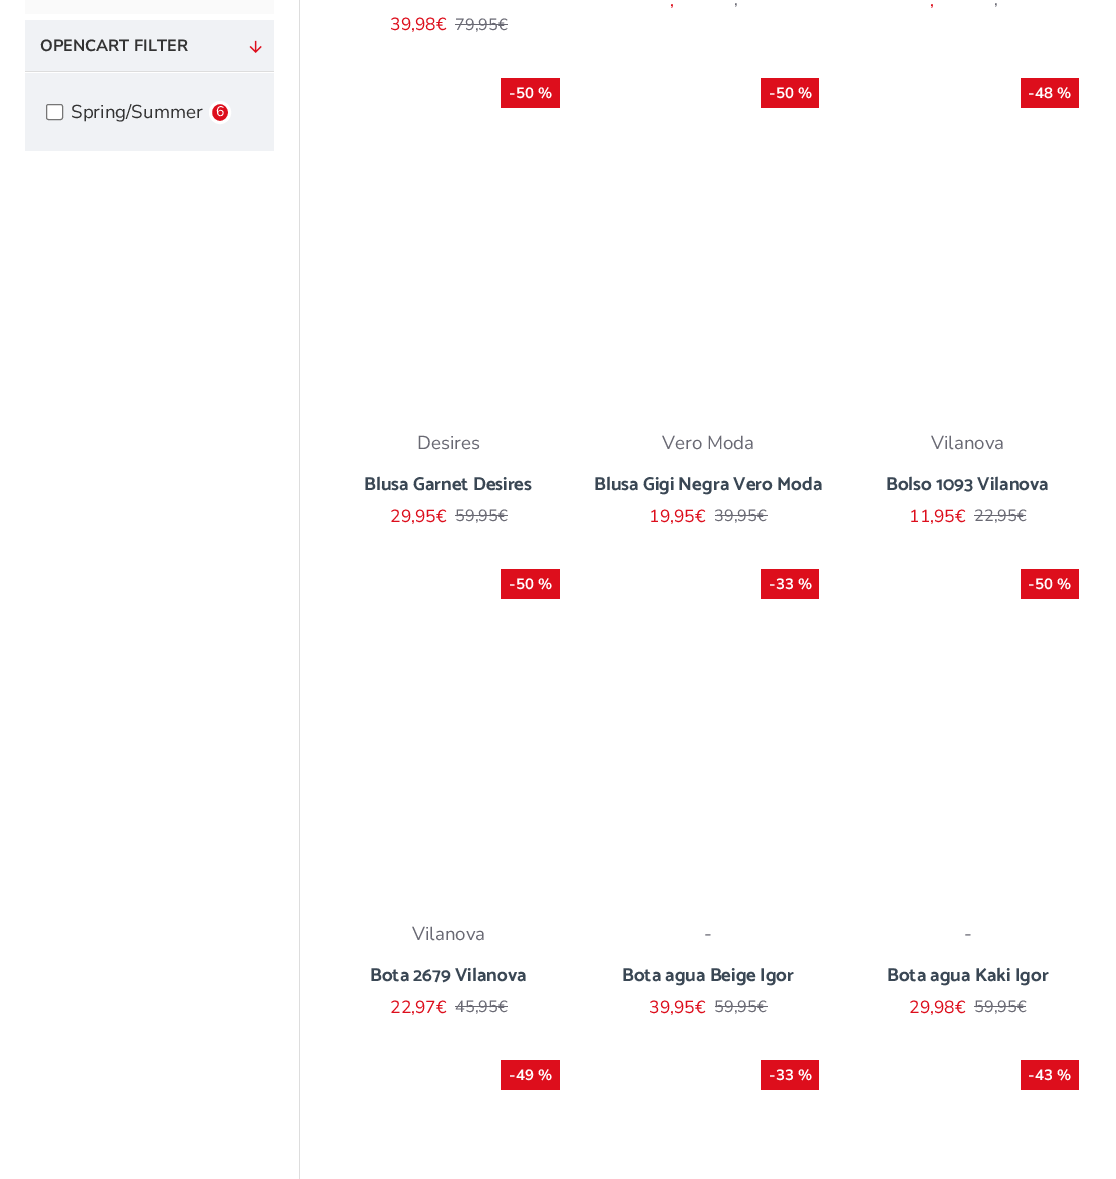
%!PS
<< /PageSize [1116 1179] >> setpagedevice
/rgb { dup -16 bitshift 255 div exch dup -8 bitshift 255 and 255 div exch 255 and 255 div setrgbcolor } def
/font { [ exch dup neg 0 0 3 -1 roll 0 0 ] selectfont } def
/text { moveto show } def
/roundrect { 5 dict begin { /r /h /w /y /x } { exch def } forall
  x r add y moveto x w add y 2 copy h add r arct x w add y h add x 1 index r arct
  x y h add x y r arct x y 2 copy exch w add exch r arct closepath end } def
/picture { 5 dict begin { /h /w /y /x /name } { exch def } forall
  gsave x y translate w h scale
  w h 8 [w 0 0 h 0 0] name (r) file false 3 colorimage grestore end } def
0 1179 translate 1 -1 scale
4 setmiterlimit
/s1 { /NunitoSans-Bold 16.25 font 16#333333 rgb } def
/s2 { /NunitoSans-Regular 18.75 font 16#333333 rgb } def
/s3 { /NunitoSans-Regular 14 font 16#FFFFFF rgb } def
/s4 { /NunitoSans-Regular 17.5 font 16#DD0E1C rgb } def
/s5 { /NunitoSans-Regular 16.25 font 16#696973 rgb } def
/s6 { /NunitoSans-Bold 15 font 16#FFFFFF rgb } def
/s7 { /NunitoSans-Regular 18.75 font 16#696973 rgb } def
/s8 { /Catamaran-Bold 18.75 font 16#3A4754 rgb } def
16#FFFFFF rgb
0 0 1116 1179 rectfill
16#DDDDDD rgb
299 0 1 1179 rectfill
16#FAFAFA rgb
25 0 249 14 rectfill
16#F0F2F5 rgb
25 20 249 51 rectfill
s1
(OPENCART FILTER) 40 51 text
(pic1.raw) 249 40 13 13 picture
16#F0F2F5 rgb
25 73 249 78 rectfill
16#DDDDDD rgb
25 71 249 1 rectfill
16#FFFFFF rgb
46.5 104.5 16 15 2 roundrect gsave fill grestore
16#767676 rgb
stroke
s2
(Spring/Summer) 71 118 text
16#DD0E1C rgb
210.5 102.5 19 20 9.5 roundrect gsave fill grestore
16#FFFFFF rgb
3 setlinewidth
stroke
s3
(6) 216 116 text
s4
(,) 670 6 text
s5
(,) 734 5 text
s4
(,) 930 6 text
s5
(,) 994 5 text
s4
(39,98€) 390 30 text
s5
(79,95€) 455 30 text
455 24 53 1 rectfill
16#DD0E1C rgb
501 78 59 30 rectfill
s6
(-50 %) 509 98 text
s7
(Desires) 417 449 text
s8
(Blusa Garnet Desires) 364 490 text
s4
(29,95€) 390 522 text
s5
(59,95€) 455 521 text
455 515 53 1 rectfill
16#DD0E1C rgb
761 78 58 30 rectfill
s6
(-50 %) 769 98 text
s7
(Vero Moda) 662 449 text
s8
(Blusa Gigi Negra Vero Moda) 594 490 text
s4
(19,95€) 649 522 text
s5
(39,95€) 714 521 text
715 515 53 1 rectfill
16#DD0E1C rgb
1021 78 58 30 rectfill
s6
(-48 %) 1028 98 text
s7
(Vilanova) 931 449 text
s8
(Bolso 1093 Vilanova) 886 490 text
s4
(11,95€) 909 522 text
s5
(22,95€) 974 521 text
974 515 52 1 rectfill
16#DD0E1C rgb
501 569 59 30 rectfill
s6
(-50 %) 509 589 text
s7
(Vilanova) 412 940 text
s8
(Bota 2679 Vilanova) 370 981 text
s4
(22,97€) 390 1013 text
s5
(45,95€) 455 1012 text
455 1006 53 1 rectfill
16#DD0E1C rgb
761 569 58 30 rectfill
s6
(-33 %) 769 589 text
s7
(-) 704 940 text
s8
(Bota agua Beige Igor) 622 981 text
s4
(39,95€) 649 1013 text
s5
(59,95€) 714 1012 text
715 1006 53 1 rectfill
16#DD0E1C rgb
1021 569 58 30 rectfill
s6
(-50 %) 1028 589 text
s7
(-) 964 940 text
s8
(Bota agua Kaki Igor) 887 981 text
s4
(29,98€) 909 1013 text
s5
(59,95€) 974 1012 text
974 1006 52 1 rectfill
16#DD0E1C rgb
501 1060 59 30 rectfill
s6
(-49 %) 509 1080 text
16#DD0E1C rgb
761 1060 58 30 rectfill
s6
(-33 %) 769 1080 text
16#DD0E1C rgb
1021 1060 58 30 rectfill
s6
(-43 %) 1028 1080 text
showpage
